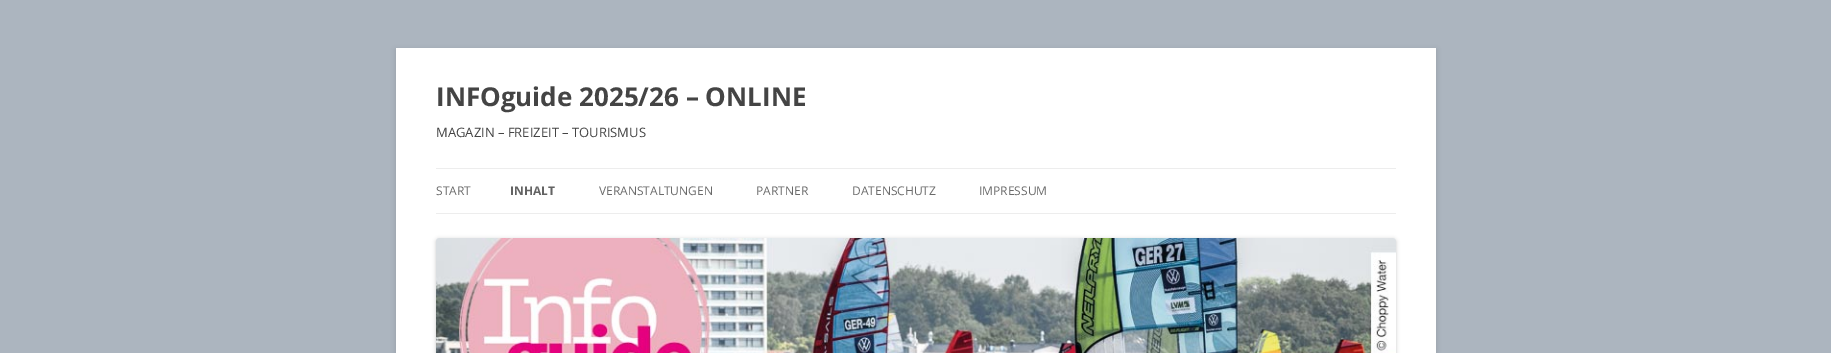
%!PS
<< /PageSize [1831 353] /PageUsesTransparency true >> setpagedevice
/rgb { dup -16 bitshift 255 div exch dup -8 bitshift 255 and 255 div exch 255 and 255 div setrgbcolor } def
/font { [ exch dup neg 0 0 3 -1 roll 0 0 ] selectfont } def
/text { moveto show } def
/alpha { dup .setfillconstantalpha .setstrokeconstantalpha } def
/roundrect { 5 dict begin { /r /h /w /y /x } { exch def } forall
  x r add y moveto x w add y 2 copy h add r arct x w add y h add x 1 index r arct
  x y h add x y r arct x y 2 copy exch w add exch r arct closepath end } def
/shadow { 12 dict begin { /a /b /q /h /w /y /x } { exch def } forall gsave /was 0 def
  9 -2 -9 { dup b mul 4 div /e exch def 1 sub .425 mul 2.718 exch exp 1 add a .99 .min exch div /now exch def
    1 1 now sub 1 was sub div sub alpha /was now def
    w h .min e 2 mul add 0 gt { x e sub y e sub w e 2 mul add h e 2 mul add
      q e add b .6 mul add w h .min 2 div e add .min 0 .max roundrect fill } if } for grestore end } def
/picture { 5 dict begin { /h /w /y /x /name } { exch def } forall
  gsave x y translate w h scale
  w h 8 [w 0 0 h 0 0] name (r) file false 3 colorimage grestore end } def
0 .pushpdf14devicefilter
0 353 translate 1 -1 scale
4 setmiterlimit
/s1 { /OpenSans-Bold 26 font 16#444444 rgb } def
/s2 { /OpenSans-Regular 13 font 16#444444 rgb } def
/s3 { /OpenSans-Regular 12 font 16#6A6A6A rgb } def
/s4 { /OpenSans-Bold 12 font 16#636363 rgb } def
16#ACB5BF rgb
0 0 1831 353 rectfill
16#646464 rgb
396 50 1040 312 0 3 0.3 shadow
16#FFFFFF rgb
396 48 1040 305 rectfill
s1
(INFOguide 2025/26 – ONLINE) 436 106 text
s2
(MAGAZIN – FREIZEIT – TOURISMUS) 436 137 text
16#EDEDED rgb
436 168 960 1 rectfill
436 213 960 1 rectfill
s3
(START) 436 195 text
s4
(INHALT) 510 195 text
s3
(VERANSTALTUNGEN) 599 195 text
(PARTNER) 756 195 text
(DATENSCHUTZ) 852 195 text
(IMPRESSUM) 979 195 text
16#000000 rgb
436 239 960 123 3 2 0.2 shadow
(pic1.raw) 436 238 960 115 picture
.poppdf14devicefilter showpage
